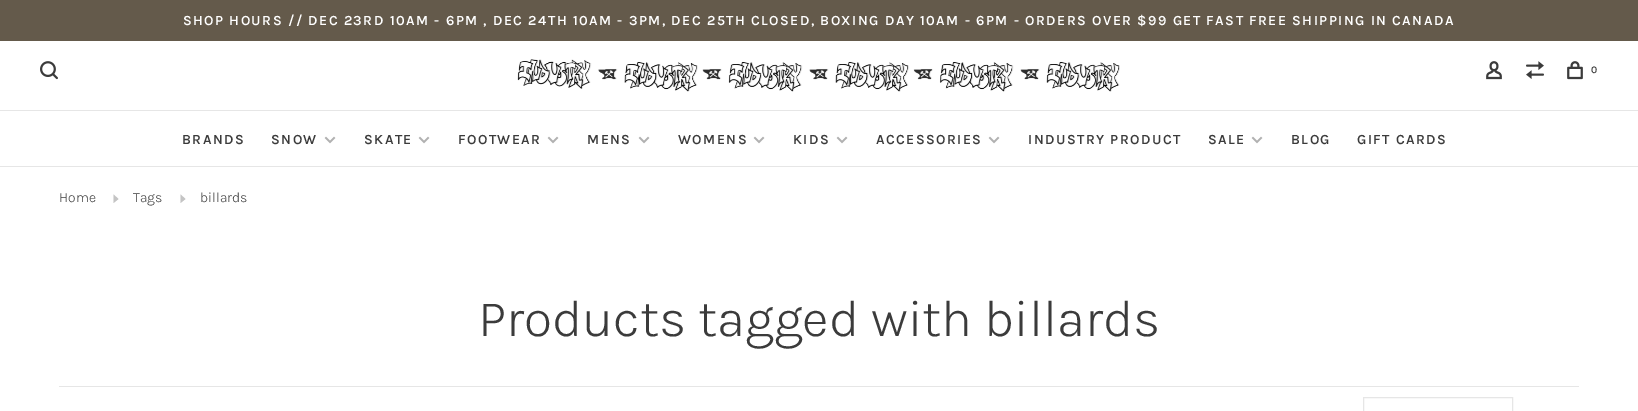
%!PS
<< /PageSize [1638 411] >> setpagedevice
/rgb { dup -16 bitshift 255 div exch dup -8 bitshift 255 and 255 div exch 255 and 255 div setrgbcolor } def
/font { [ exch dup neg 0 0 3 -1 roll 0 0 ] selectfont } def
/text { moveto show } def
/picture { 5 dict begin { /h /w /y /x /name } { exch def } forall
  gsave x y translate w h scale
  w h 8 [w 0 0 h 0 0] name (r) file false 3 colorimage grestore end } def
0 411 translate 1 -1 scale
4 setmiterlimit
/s1 { /Karla-Light 14 font 16#3B3B3B rgb } def
/s2 { /Karla-Light 52 font 16#3B3B3B rgb } def
16#FFFFFF rgb
0 0 1638 411 rectfill
16#645A4B rgb
0 0 1638 41 rectfill
/Karla-SemiBold 14 font
16#FFFFFF rgb
183 25 moveto 1.4 0 (SHOP HOURS // DEC 23RD 10AM - 6PM , DEC 24TH 10AM - 3PM, DEC 25TH CLOSED, BOXING DAY 10AM - 6PM - ORDERS OVER $99 GET FAST FREE SHIPPING IN CANADA) ashow
16#E6E6E6 rgb
0 110 1638 1 rectfill
(pic1.raw) 40 61 18 19 picture
(pic2.raw) 517 59 603 33 picture
(pic3.raw) 1486 61 16 19 picture
(pic4.raw) 1526 61 18 18 picture
(pic5.raw) 1567 61 16 19 picture
/Karla-SemiBold 10 font
16#3B3B3B rgb
1591 73 moveto 1.4 0 (0) ashow
16#E6E6E6 rgb
0 166 1638 1 rectfill
/Karla-SemiBold 14 font
16#3B3B3B rgb
182 144 moveto 1.4 0 (BRANDS) ashow
271 144 moveto 1.4 0 (SNOW) ashow
(pic6.raw) 324 136 12 8 picture
364 144 moveto 1.4 0 (SKATE) ashow
(pic6.raw) 418 136 12 8 picture
458 144 moveto 1.4 0 (FOOTWEAR) ashow
(pic6.raw) 547 136 12 8 picture
587 144 moveto 1.4 0 (MENS) ashow
(pic6.raw) 638 136 12 8 picture
678 144 moveto 1.4 0 (WOMENS) ashow
(pic6.raw) 753 136 12 8 picture
793 144 moveto 1.4 0 (KIDS) ashow
(pic6.raw) 836 136 12 8 picture
876 144 moveto 1.4 0 (ACCESSORIES) ashow
(pic6.raw) 988 136 12 8 picture
1028 144 moveto 1.4 0 (INDUSTRY PRODUCT) ashow
1208 144 moveto 1.4 0 (SALE) ashow
(pic6.raw) 1251 136 12 8 picture
1291 144 moveto 1.4 0 (BLOG) ashow
1357 144 moveto 1.4 0 (GIFT CARDS) ashow
s1
(Home) 59 202 text
16#C4C4C4 rgb
113.5 203 moveto 118.5 199 lineto 113.5 194.5 lineto closepath fill
s1
(Tags) 133 202 text
16#C4C4C4 rgb
180.5 203 moveto 185.5 199 lineto 180.5 194.5 lineto closepath fill
s1
(billards) 200 202 text
s2
(Products tagged with billards) 478 336 text
16#E6E6E6 rgb
59 386 1520 1 rectfill
1363.5 397.5 149 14 rectstroke
showpage
